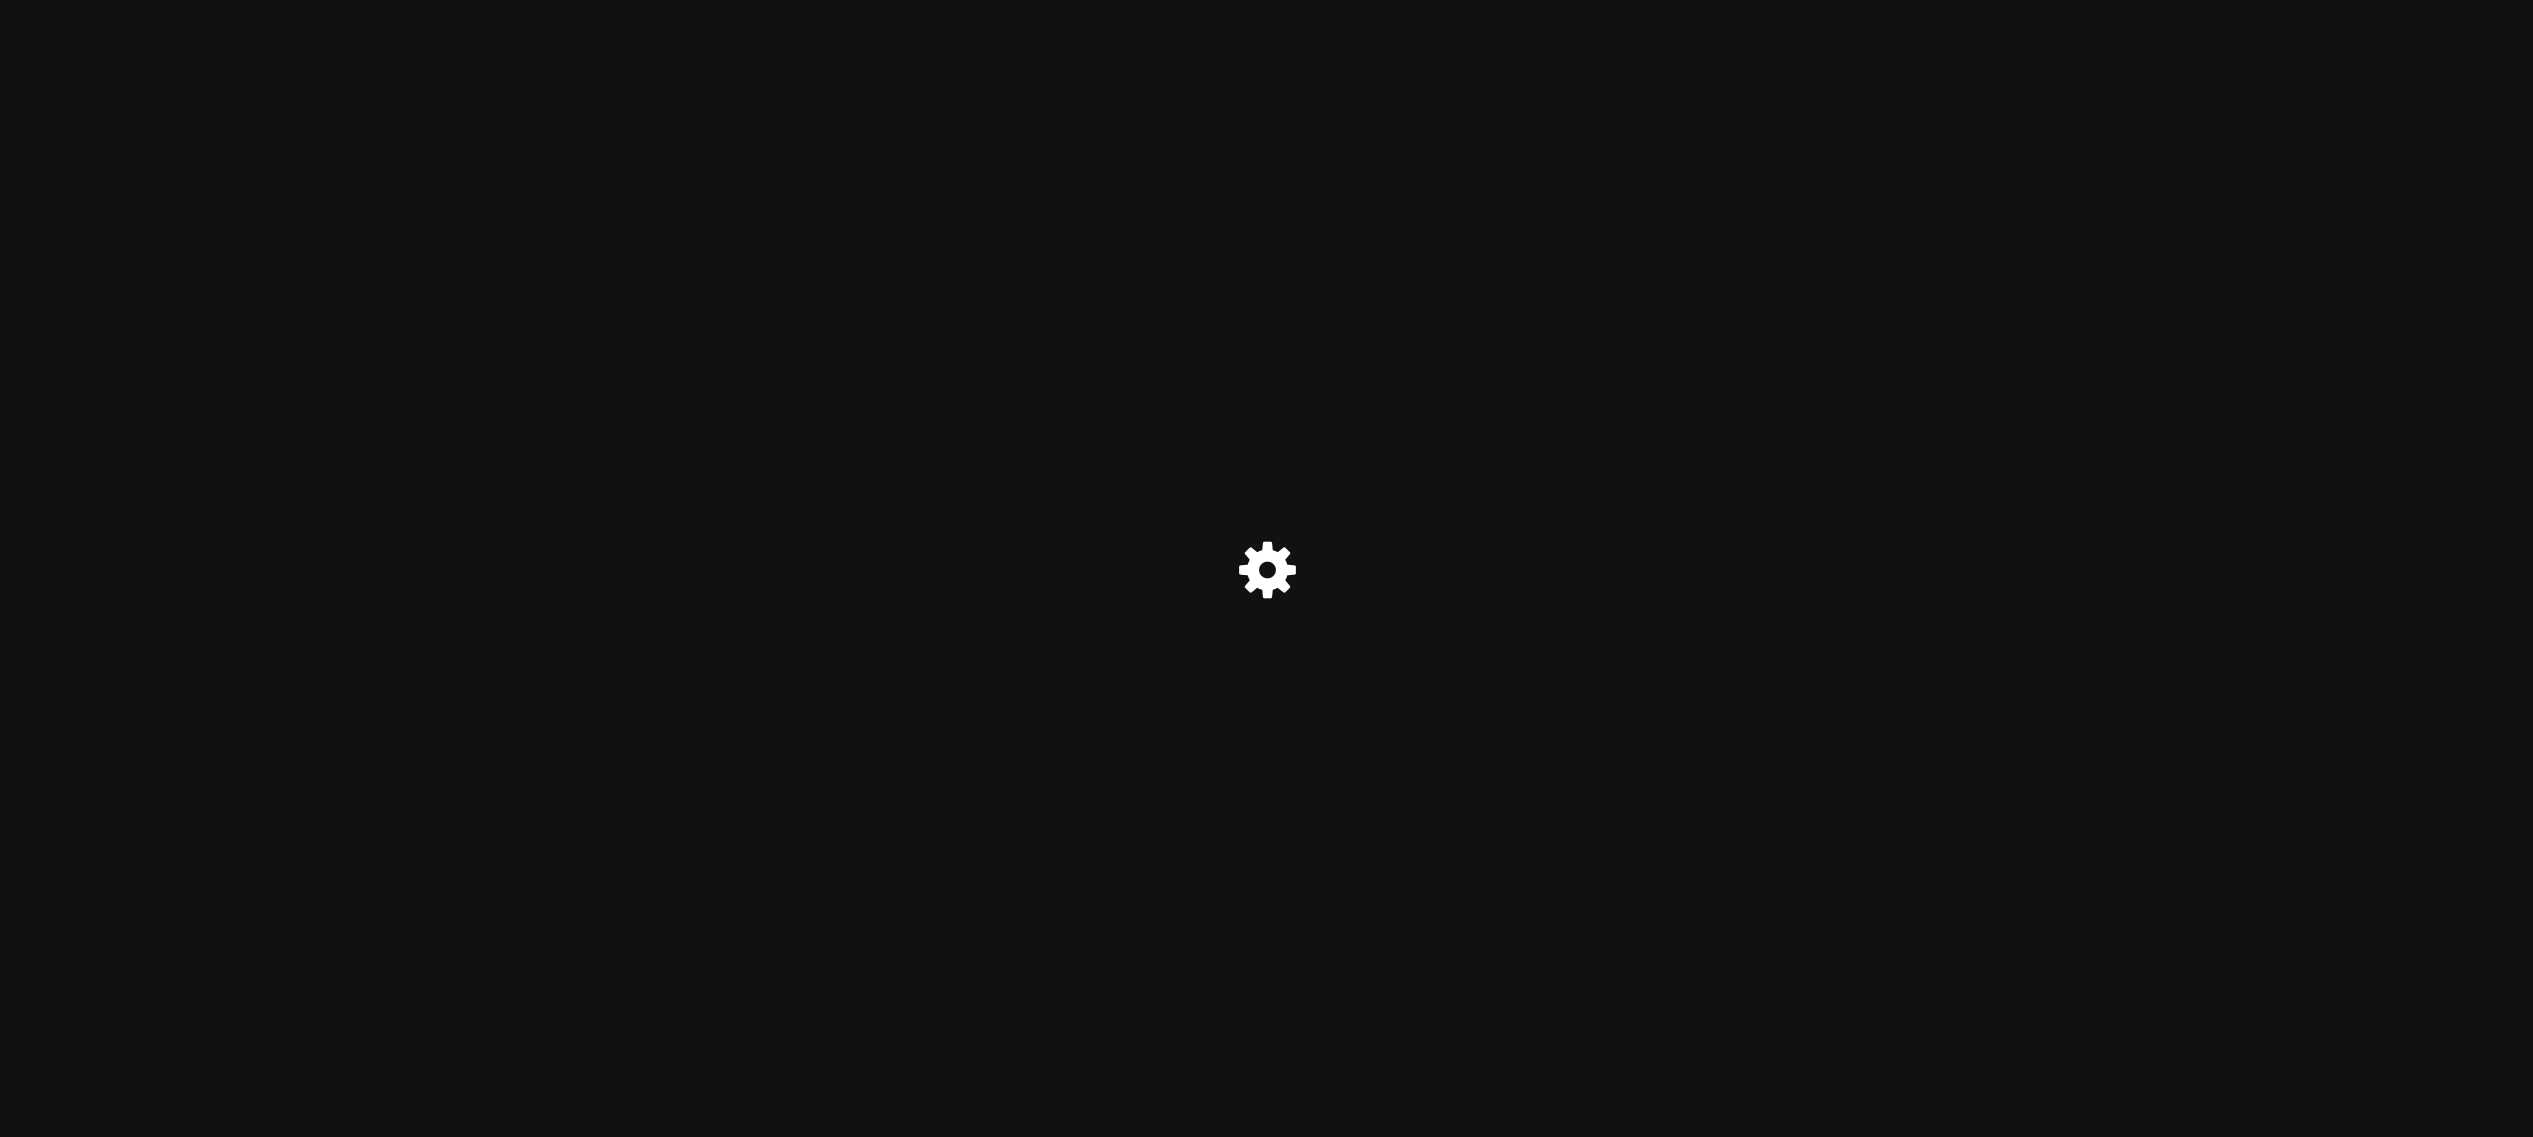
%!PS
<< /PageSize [2533 1137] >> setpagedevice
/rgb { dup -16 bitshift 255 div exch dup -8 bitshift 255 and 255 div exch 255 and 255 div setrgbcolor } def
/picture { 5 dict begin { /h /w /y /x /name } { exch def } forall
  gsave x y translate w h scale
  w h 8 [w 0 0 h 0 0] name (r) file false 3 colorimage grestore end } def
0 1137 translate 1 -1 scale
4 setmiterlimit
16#111111 rgb
0 0 2533 1137 rectfill
(pic1.raw) 1239 541 57 58 picture
showpage
